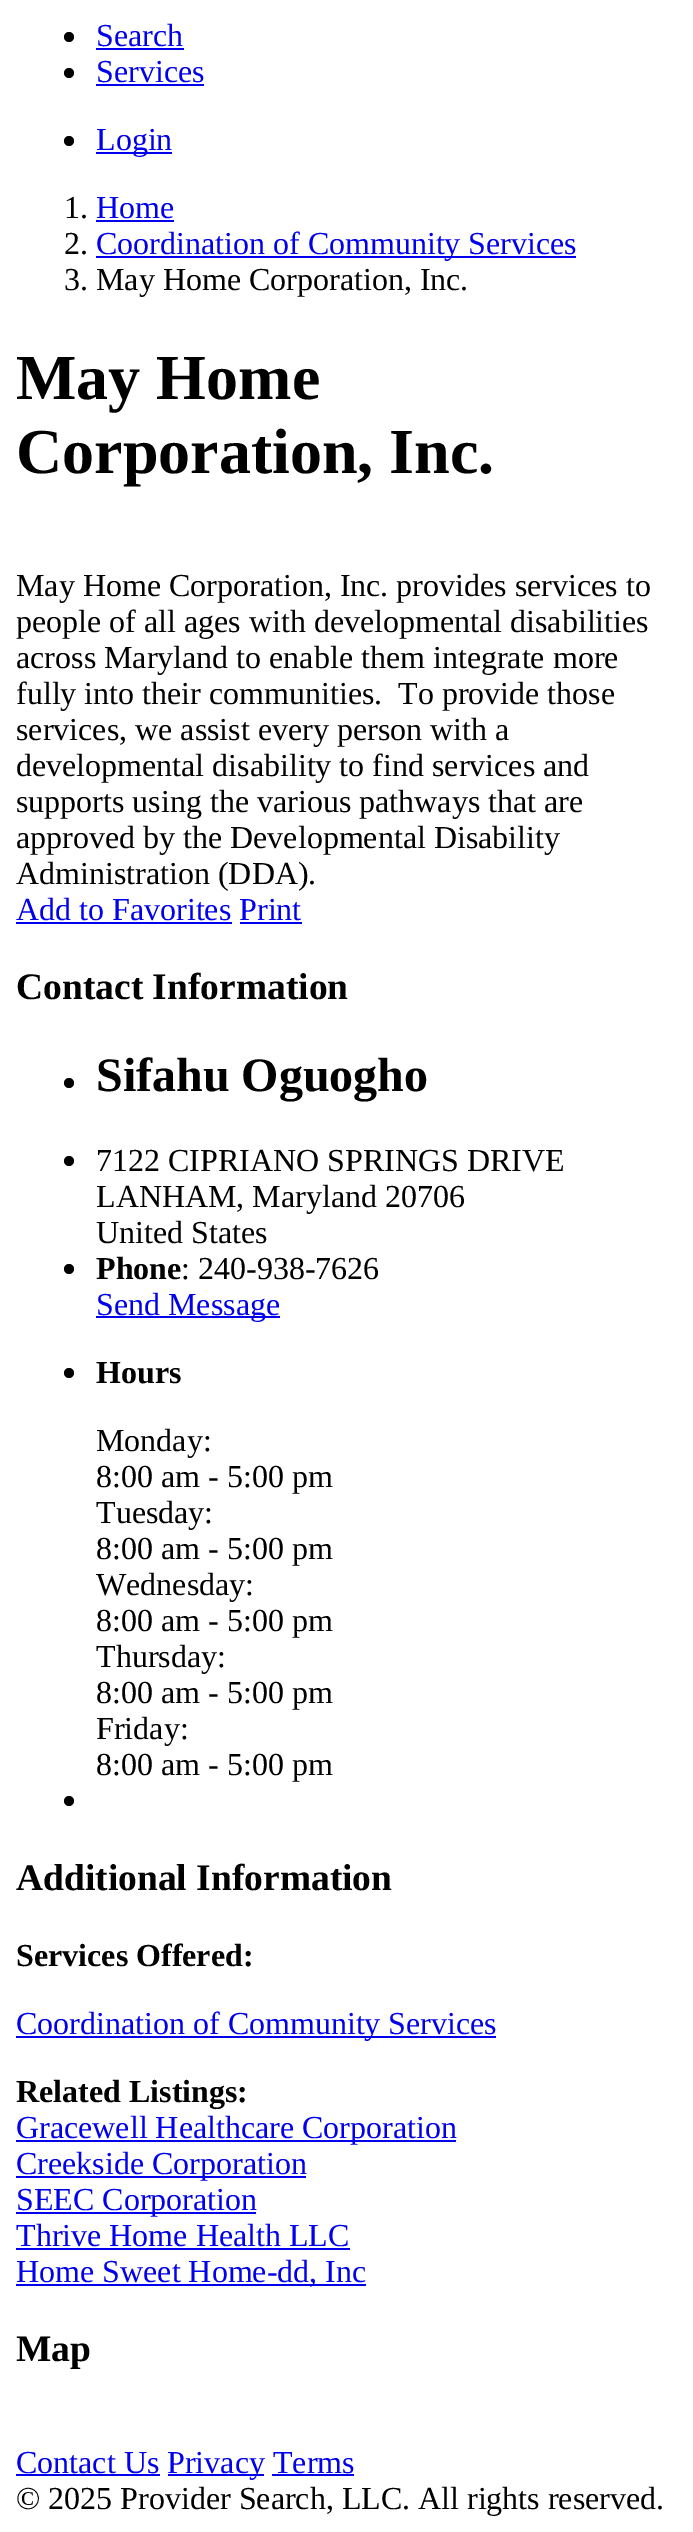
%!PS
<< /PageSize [693 2532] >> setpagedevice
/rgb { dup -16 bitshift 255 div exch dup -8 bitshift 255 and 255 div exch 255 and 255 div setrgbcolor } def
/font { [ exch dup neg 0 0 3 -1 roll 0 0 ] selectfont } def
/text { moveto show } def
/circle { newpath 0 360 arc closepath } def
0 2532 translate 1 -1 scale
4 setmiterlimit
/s1 { /LiberationSerif-Regular 32 font 16#0000EE rgb } def
/s2 { /LiberationSerif-Regular 32 font 16#000000 rgb } def
/s3 { /LiberationSerif-Bold 64 font 16#000000 rgb } def
/s4 { /LiberationSerif-Bold 37.5 font 16#000000 rgb } def
/s5 { /LiberationSerif-Bold 48 font 16#000000 rgb } def
/s6 { /LiberationSerif-Bold 32 font 16#000000 rgb } def
16#FFFFFF rgb
0 0 693 2532 rectfill
16#000000 rgb
69 37 5 circle fill
s1
(Search) 96 46 text
96 48 88 2 rectfill
16#000000 rgb
69 73 5 circle fill
s1
(Services) 96 82 text
96 84 108 2 rectfill
16#000000 rgb
69 141 5 circle fill
16#0000EE rgb
96 152 76 2 rectfill
(Login) 96 150 text
s2
(1.) 64 218 text
s1
(Home) 96 218 text
96 220 78 2 rectfill
s2
(2.) 64 254 text
16#0000EE rgb
96 256 480 2 rectfill
(Coordination of Community Services) 96 254 text
s2
(3. May Home Corporation, Inc.) 64 290 text
s3
(May Home) 16 399 text
(Corporation, Inc.) 16 473 text
s2
(May Home Corporation, Inc. provides services to) 16 596 text
(people of all ages with developmental disabilities) 16 632 text
(across Maryland to enable them integrate more) 16 668 text
(fully into their communities.  To provide those) 16 704 text
(services, we assist every person with a) 16 740 text
(developmental disability to find services and) 16 776 text
(supports using the various pathways that are) 16 812 text
(approved by the Developmental Disability) 16 848 text
(Administration \(DDA\).) 16 884 text
s1
(Add to Favorites Print) 16 920 text
16 922 216 2 rectfill
240 922 62 2 rectfill
s4
(Contact Information) 16 999 text
69 1083 5 circle fill
s5
(Sifahu Oguogho) 96 1091 text
69 1161 5 circle fill
s2
(7122 CIPRIANO SPRINGS DRIVE) 96 1171 text
(LANHAM, Maryland 20706) 96 1207 text
(United States) 96 1243 text
69 1269 5 circle fill
s6
(Phone) 96 1279 text
s2
(: 240-938-7626) 181 1279 text
16#0000EE rgb
96 1316 184 2 rectfill
(Send Message) 96 1315 text
16#000000 rgb
69 1373 5 circle fill
s6
(Hours) 96 1383 text
s2
(Monday:) 96 1451 text
(8:00 am - 5:00 pm) 96 1487 text
(Tuesday:) 96 1523 text
(8:00 am - 5:00 pm) 96 1559 text
(Wednesday:) 96 1595 text
(8:00 am - 5:00 pm) 96 1631 text
(Thursday:) 96 1667 text
(8:00 am - 5:00 pm) 96 1703 text
(Friday:) 96 1739 text
(8:00 am - 5:00 pm) 96 1775 text
69 1801 5 circle fill
s4
(Additional Information) 16 1890 text
s6
(Services Offered:) 16 1966 text
16#0000EE rgb
16 2036 480 2 rectfill
s1
(Coordination of Community Services) 16 2034 text
s6
(Related Listings:) 16 2102 text
16#0000EE rgb
16 2140 440 2 rectfill
s1
(Gracewell Healthcare Corporation) 16 2138 text
16 2176 290 2 rectfill
(Creekside Corporation) 16 2174 text
16 2212 240 2 rectfill
(SEEC Corporation) 16 2210 text
(Thrive Home Health LLC) 16 2246 text
16 2248 334 2 rectfill
16 2284 350 2 rectfill
(Home Sweet Home-dd, Inc) 16 2282 text
s4
(Map) 16 2361 text
s1
(Contact Us) 16 2473 text
16 2474 144 2 rectfill
168 2474 96 2 rectfill
(Privacy Terms) 167 2473 text
272 2474 82 2 rectfill
s2
(© 2025 Provider Search, LLC. All rights reserved.) 16 2509 text
showpage
